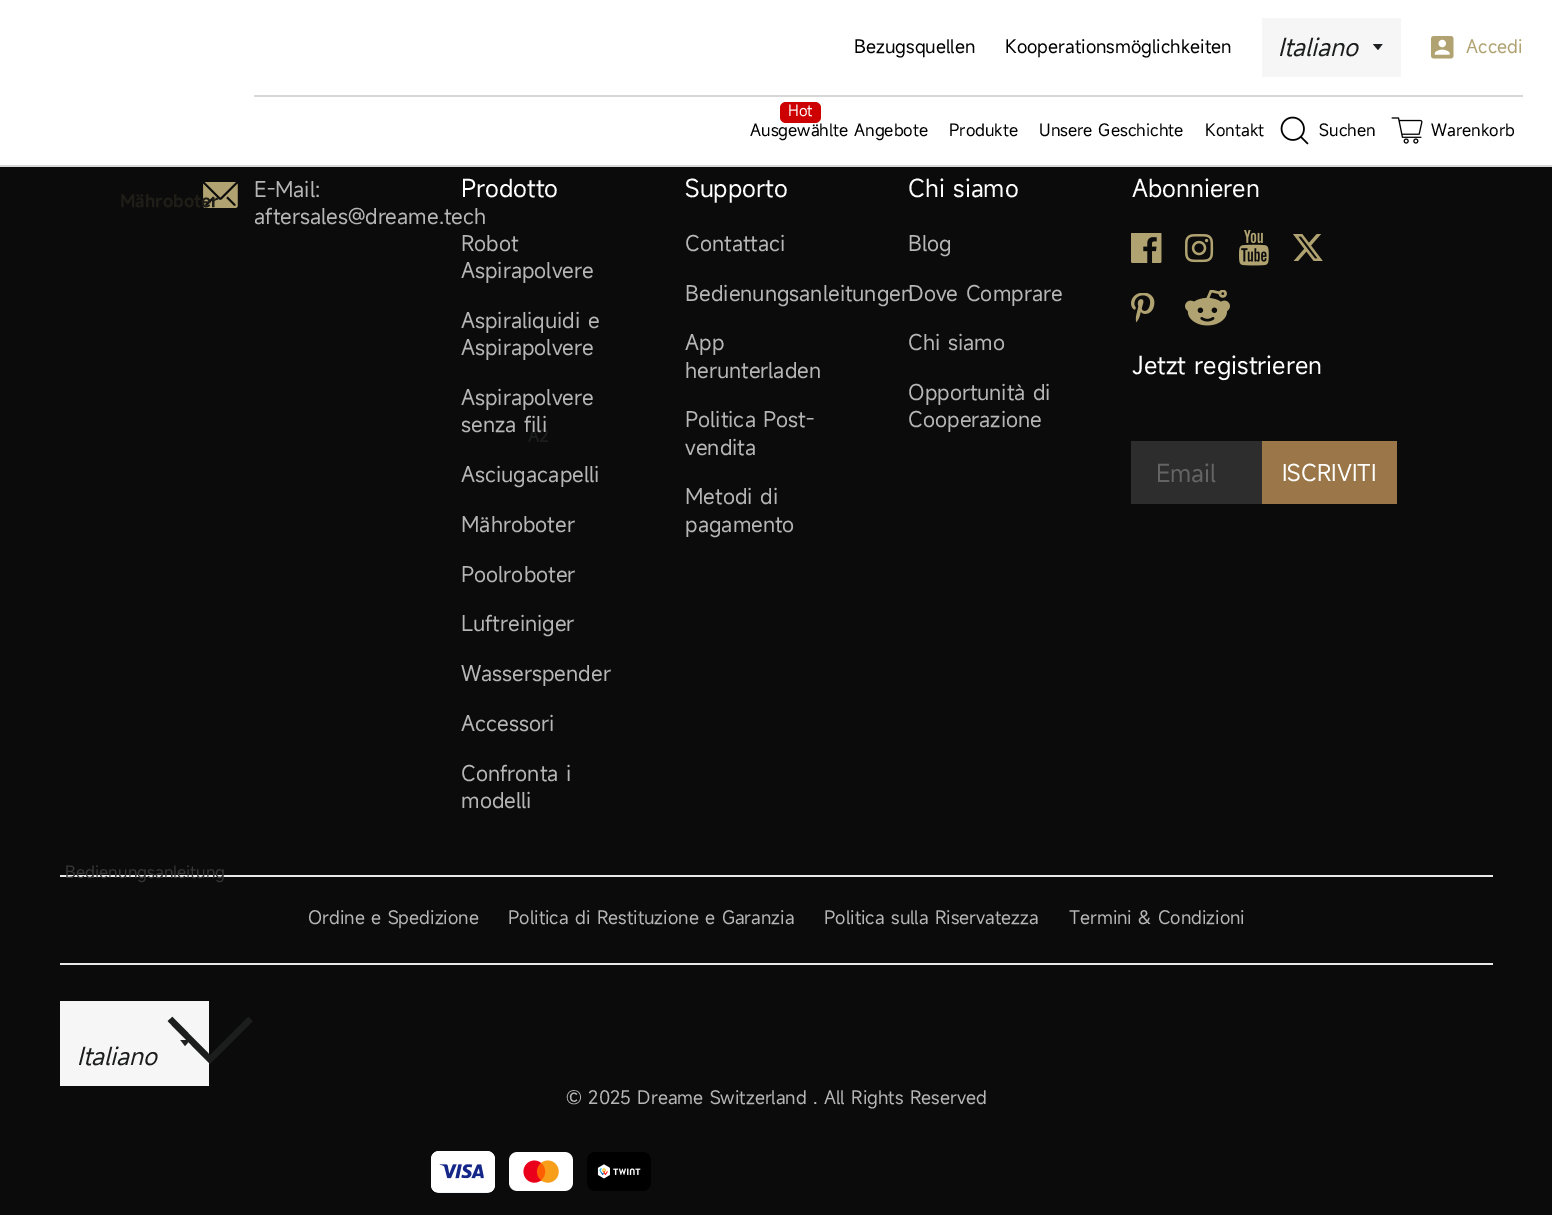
%!PS
<< /PageSize [1552 1215] >> setpagedevice
/rgb { dup -16 bitshift 255 div exch dup -8 bitshift 255 and 255 div exch 255 and 255 div setrgbcolor } def
/font { [ exch dup neg 0 0 3 -1 roll 0 0 ] selectfont } def
/text { moveto show } def
/roundrect { 5 dict begin { /r /h /w /y /x } { exch def } forall
  x r add y moveto x w add y 2 copy h add r arct x w add y h add x 1 index r arct
  x y h add x y r arct x y 2 copy exch w add exch r arct closepath end } def
/picture { 5 dict begin { /h /w /y /x /name } { exch def } forall
  gsave x y translate w h scale
  w h 8 [w 0 0 h 0 0] name (r) file false 3 colorimage grestore end } def
0 1215 translate 1 -1 scale
4 setmiterlimit
/s1 { /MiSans-Regular 18 font 16#000000 rgb } def
/s2 { /MiSans-Italic 24 font 16#1C1D1D rgb } def
/s3 { /MiSans-Regular 18 font 16#B0A371 rgb } def
/s4 { /MiSans-Regular 15 font 16#FFFFFF rgb } def
/s5 { /MiSans-Regular 16.5 font 16#000000 rgb } def
/s6 { /MiSans-SemiBold 16.5 font 16#1F1D17 rgb } def
/s7 { /MiSans-Regular 16.5 font 16#363636 rgb } def
/s8 { /MiSans-Bold 16.5 font 16#1C1D1D rgb } def
/s9 { /MiSans-Regular 21 font 16#B6B6B6 rgb } def
/s10 { /MiSans-Regular 24 font 16#FFFFFF rgb } def
/s11 { /MiSans-Regular 24 font 16#646464 rgb } def
/s12 { /MiSans-Regular 22.5 font 16#FFFFFF rgb } def
/s13 { /MiSans-Regular 18 font 16#B6B6B6 rgb } def
16#0B0B0B rgb
0 0 1552 1215 rectfill
16#FFFFFF rgb
0 0 1552 165 rectfill
16#D7D7D7 rgb
0 165 1552 2 rectfill
254 95 1269 2 rectfill
s1
(Bezugsquellen) 854 53 text
(Kooperationsmöglichkeiten) 1005 53 text
16#F6F6F6 rgb
1262 18 139 59 rectfill
gsave
1373 44 12 7 rectclip
16#1F2021 rgb
1372.5 43.5 moveto 1378 50 lineto 1383 43.5 lineto closepath fill
grestore
s2
(Italiano) 1278 56 text
(pic1.raw) 1431 36 23 23 picture
s3
(Accedi) 1466 53 text
16#CD0101 rgb
780 102 41 21 6 roundrect fill
s4
(Hot) 788 116 text
s5
(Ausgewählte Angebote) 750 136 text
(Produkte) 949 136 text
(pic4.raw) 203 182 35 26 picture
s6
(Mähroboter) 120 207 text
16#E9E9E9 rgb
60 875 1433 2 rectfill
s7
(Bedienungsanleitung) 65 878 text
s8
(A2) 528 442 text
s5
(Unsere Geschichte) 1039 136 text
(Kontakt) 1205 136 text
(pic2.raw) 1280 116 29 29 picture
(Suchen) 1319 136 text
(pic3.raw) 1391 117 32 27 picture
(Warenkorb) 1431 136 text
s9
(E-Mail:) 254 197 text
(aftersales@dreame.tech) 254 224 text
s10
(Prodotto) 461 197 text
s9
(Robot) 461 251 text
(Aspirapolvere) 461 278 text
(Aspiraliquidi e) 461 328 text
(Aspirapolvere) 461 355 text
(Aspirapolvere) 461 405 text
(senza fili) 461 432 text
(Asciugacapelli) 461 482 text
(Mähroboter) 461 532 text
(Poolroboter) 461 582 text
(Luftreiniger) 461 631 text
(Wasserspender) 461 681 text
(Accessori) 461 731 text
(Confronta i) 461 781 text
(modelli) 461 808 text
s10
(Supporto) 685 197 text
s9
(Contattaci) 685 251 text
(Bedienungsanleitungen) 685 301 text
(App) 685 350 text
(herunterladen) 685 378 text
(Politica Post-) 685 427 text
(vendita) 685 455 text
(Metodi di) 685 504 text
(pagamento) 685 532 text
s10
(Chi siamo) 908 197 text
s9
(Blog) 908 251 text
(Dove Comprare) 908 301 text
(Chi siamo) 908 350 text
(Opportunità di) 908 400 text
(Cooperazione) 908 427 text
s10
(Abonnieren) 1132 197 text
(pic5.raw) 1131 233 31 30 picture
(pic6.raw) 1185 234 29 29 picture
(pic7.raw) 1239 230 30 36 picture
(pic8.raw) 1293 234 30 27 picture
(pic9.raw) 1131 293 24 30 picture
(pic10.raw) 1185 290 45 36 picture
(Jetzt registrieren) 1132 374 text
16#2D2D2D rgb
1131 441 131 63 rectfill
s11
(Email) 1156 482 text
16#9B7648 rgb
1262 441 135 63 rectfill
s12
(ISCRIVITI) 1282 481 text
16#E9E9E9 rgb
60 963 1433 2 rectfill
s13
(Ordine e Spedizione) 308 924 text
(Politica di Restituzione e Garanzia) 508 924 text
(Politica sulla Riservatezza) 824 924 text
(Termini & Condizioni) 1069 924 text
16#F6F6F6 rgb
60 1001 149 85 rectfill
gsave
180 1040 12 7 rectclip
16#1F2021 rgb
180 1039.5 moveto 185 1046 lineto 190.5 1039.5 lineto closepath fill
grestore
s2
(Italiano) 77 1065 text
6.3 setlinewidth
170 1019 moveto 210 1059.5 lineto 250.5 1019 lineto stroke
s13
(© 2025 Dreame Switzerland . All Rights Reserved) 566 1104 text
(pic11.raw) 431 1151 64 42 picture
(pic12.raw) 509 1152 64 39 picture
(pic13.raw) 587 1152 64 39 picture
showpage
